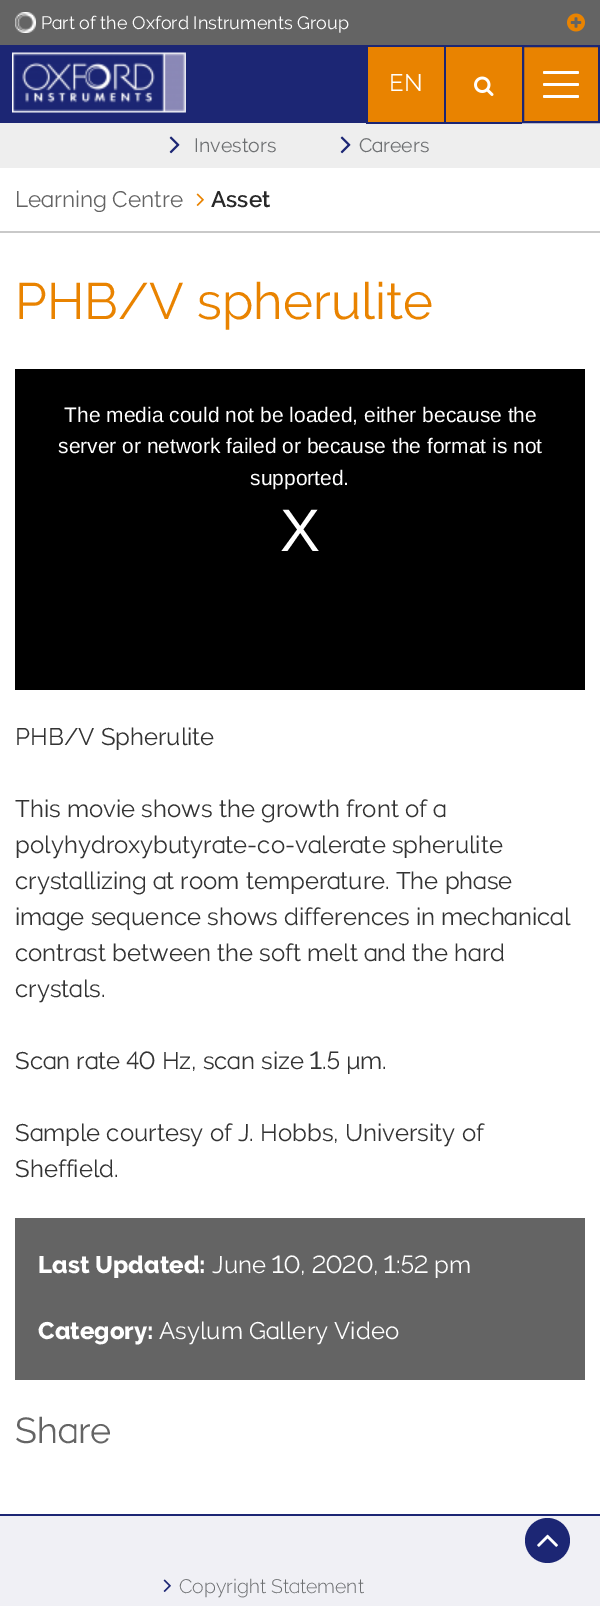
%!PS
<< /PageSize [600 1606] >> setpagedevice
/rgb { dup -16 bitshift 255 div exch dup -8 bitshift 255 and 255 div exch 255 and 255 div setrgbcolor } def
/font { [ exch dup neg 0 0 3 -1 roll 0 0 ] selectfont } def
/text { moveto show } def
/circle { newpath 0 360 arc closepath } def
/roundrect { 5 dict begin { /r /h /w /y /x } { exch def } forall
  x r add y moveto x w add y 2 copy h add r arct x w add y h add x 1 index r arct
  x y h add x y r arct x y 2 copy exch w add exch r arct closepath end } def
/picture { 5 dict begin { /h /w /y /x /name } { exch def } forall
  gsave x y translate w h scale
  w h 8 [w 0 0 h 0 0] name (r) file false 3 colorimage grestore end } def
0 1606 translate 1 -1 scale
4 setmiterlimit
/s1 { /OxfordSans-Regular 18 font 16#FFFFFF rgb } def
/s2 { /OxfordSans-Regular 24 font 16#FFFFFF rgb } def
/s3 { /OxfordSans-Regular 19.5 font 16#6D6F71 rgb } def
/s4 { /OxfordSans-Regular 22.5 font 16#646464 rgb } def
/s5 { /OxfordSans-SemiBold 22.5 font 16#282828 rgb } def
/s6 { /OxfordSans-Regular 51 font 16#E98300 rgb } def
/s7 { /LiberationSans-Regular 21 font 16#FFFFFF rgb } def
/s8 { /LiberationSans-Regular 60 font 16#FFFFFF rgb } def
/s9 { /OxfordSans-Regular 24 font 16#333333 rgb } def
/s10 { /OxfordSans-ExtraBold 24 font 16#FFFFFF rgb } def
/s11 { /OxfordSans-Regular 36 font 16#646464 rgb } def
/s12 { /OxfordSans-Light 19.5 font 16#6D6F71 rgb } def
16#FFFFFF rgb
0 0 600 1606 rectfill
16#646464 rgb
0 0 600 45 rectfill
(pic1.raw) 15 12 21 21 picture
s1
(Part of the Oxford Instruments Group) 41 29 text
(pic2.raw) 567 13 18 19 picture
16#1C2674 rgb
0 45 366 78 rectfill
(pic3.raw) 12 52 174 61 picture
16#E98300 rgb
446 47 76 75 rectfill
16#1C2674 rgb
366 45 156 2 rectfill
16#EEEEEE rgb
0 123 600 45 rectfill
16#1C2674 rgb
366 122 156 2 rectfill
444 45 2 78 rectfill
(pic4.raw) 474 76 20 20 picture
16#E98300 rgb
523 46 moveto 599 46 lineto 599 122 lineto 523 122 lineto closepath gsave fill grestore
16#1C2674 rgb
2 setlinewidth
stroke
16#FFFFFF rgb
543 71 36 3 1.5 roundrect fill
543 83 36 3 1.5 roundrect fill
543 95 36 3 1.5 roundrect fill
16#E98300 rgb
368 47 76 75 rectfill
16#1C2674 rgb
366 45 2 78 rectfill
s2
(EN) 389 91 text
(pic5.raw) 169 136 11 18 picture
s3
(Investors) 194 152 text
(pic5.raw) 340 136 11 18 picture
(Careers) 359 152 text
16#C9C9C9 rgb
0 231 600 2 rectfill
s4
(Learning Centre) 15 207 text
(pic6.raw) 196 193 8 13 picture
s5
(Asset) 211 207 text
s6
(PHB/V spherulite) 15 319 text
16#000000 rgb
15 369 570 321 rectfill
s7
(The media could not be loaded, either because the) 64 422 text
(server or network failed or because the format is not) 58 453 text
(supported.) 250 485 text
s8
(X) 280 551 text
s9
(PHB/V Spherulite) 15 745 text
(This movie shows the growth front of a) 15 817 text
(polyhydroxybutyrate-co-valerate spherulite) 15 853 text
(crystallizing at room temperature. The phase) 15 889 text
(image sequence shows differences in mechanical) 15 925 text
(contrast between the soft melt and the hard) 15 961 text
(crystals.) 15 997 text
(Scan rate 40 Hz, scan size 1.5 µm.) 15 1069 text
(Sample courtesy of J. Hobbs, University of) 15 1141 text
(Sheffield.) 15 1177 text
16#646464 rgb
15 1218 570 162 rectfill
s10
(Last Updated:) 38 1273 text
s2
(June 10, 2020, 1:52 pm) 212 1273 text
s10
(Category:) 38 1339 text
s2
(Asylum Gallery Video) 159 1339 text
s11
(Share) 15 1443 text
16#F0F0F5 rgb
0 1516 600 90 rectfill
16#1C2674 rgb
0 1514 600 2 rectfill
547.5 1540.5 22.5 circle fill
(pic7.raw) 537 1534 21 13 picture
(pic8.raw) 163 1579 8 13 picture
s12
(Copyright Statement) 179 1593 text
showpage
